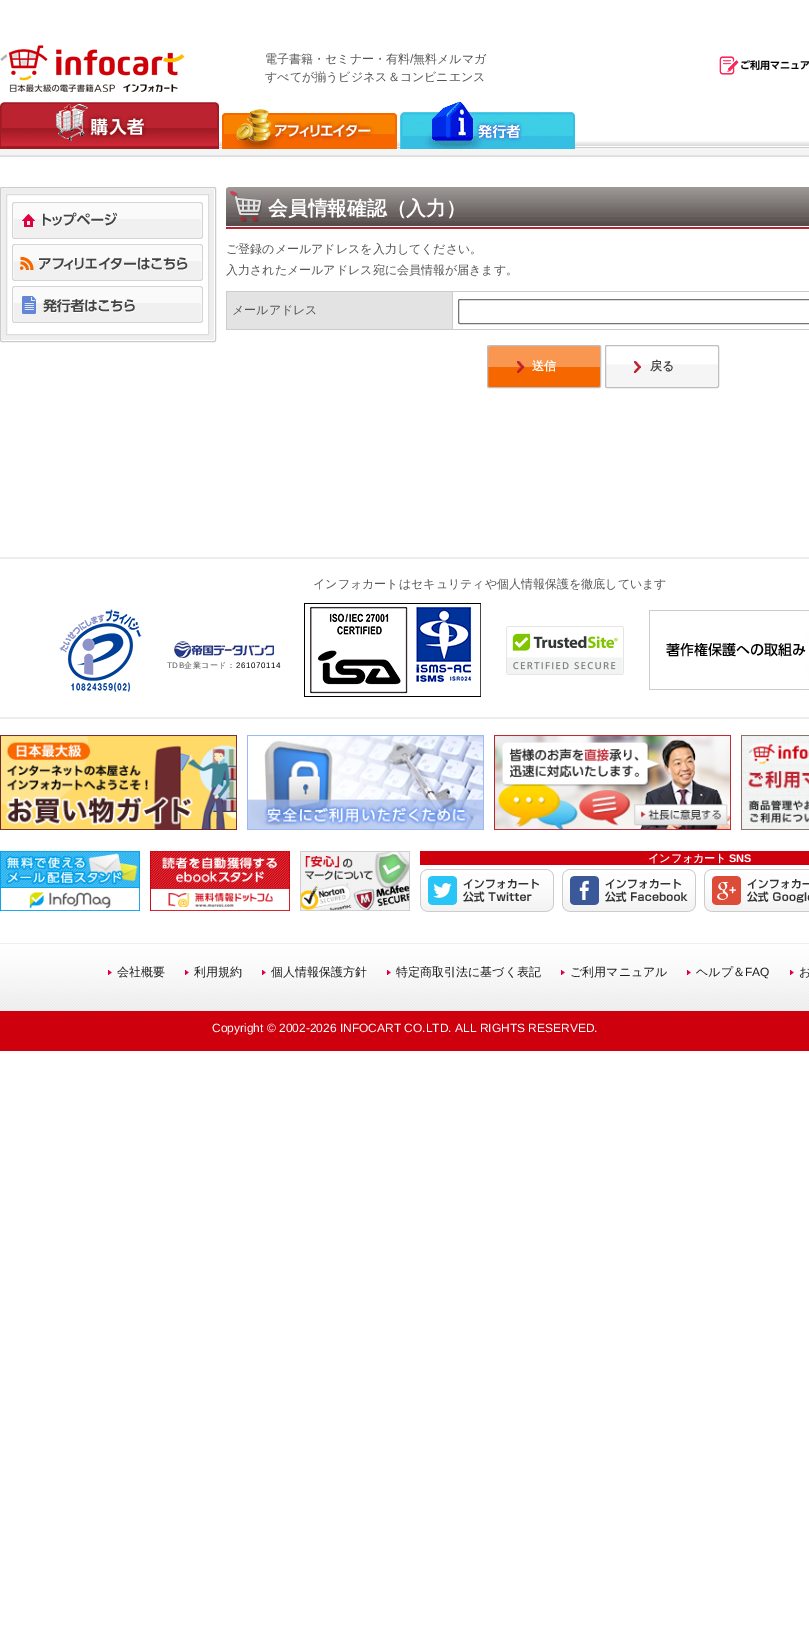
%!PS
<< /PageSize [809 1633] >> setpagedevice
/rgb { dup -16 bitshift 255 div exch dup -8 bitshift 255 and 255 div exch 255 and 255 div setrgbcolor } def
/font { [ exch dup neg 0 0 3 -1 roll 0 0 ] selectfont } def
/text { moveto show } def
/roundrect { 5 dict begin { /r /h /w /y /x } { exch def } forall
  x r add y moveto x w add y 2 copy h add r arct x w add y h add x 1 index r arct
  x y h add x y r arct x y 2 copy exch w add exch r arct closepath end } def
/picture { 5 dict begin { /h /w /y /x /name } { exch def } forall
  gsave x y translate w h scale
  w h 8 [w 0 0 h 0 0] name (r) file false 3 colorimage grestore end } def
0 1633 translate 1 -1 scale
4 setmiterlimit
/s1 { /WenQuanYiZenHei-Medium 12 font 16#555555 rgb } def
/s2 { /LiberationSans-Regular 12 font 16#555555 rgb } def
/s3 { /WenQuanYiZenHei-Bold 19.75 font 16#FFFFFF rgb } def
/s4 { /WenQuanYiZenHei-Bold 12 font 16#FFFFFF rgb } def
/s5 { /WenQuanYiZenHei-Bold 12 font 16#444444 rgb } def
/s6 { /WenQuanYiZenHei-Bold 11 font 16#FFFFFF rgb } def
/s7 { /LiberationSans-Bold 11 font 16#FFFFFF rgb } def
/s8 { /WenQuanYiZenHei-Medium 12 font 16#1C1B1B rgb } def
/s9 { /LiberationSans-Regular 12 font 16#1C1B1B rgb } def
/s10 { /LiberationSans-Regular 12 font 16#FFFFFF rgb } def
16#FFFFFF rgb
0 0 809 1633 rectfill
(pic1.raw) 0 141 809 16 picture
(pic2.raw) 0 45 185 47 picture
s1
(電子書籍・セミナー・有料) 265 63 text
s2
(/) 410 63 text
s1
(無料メルマガ) 413 63 text
(すべてが揃うビジネス＆コンビニエンス) 265 81 text
(pic3.raw) 719 56 90 19 picture
(pic4.raw) 0 102 219 47 picture
(pic5.raw) 222 109 175 40 picture
(pic6.raw) 400 101 175 48 picture
16#CCCCCC rgb
0.5 187.5 215 154 1.5 roundrect stroke
16#EEEEEE rgb
2 189 212 151 rectfill
16#FFFFFF rgb
6.5 194.5 moveto 208.5 194.5 lineto 208.5 334.5 lineto 6.5 334.5 lineto closepath gsave fill grestore
16#DDDDDD rgb
stroke
(pic7.raw) 12 202 191 37 picture
(pic8.raw) 12 244 191 37 picture
(pic9.raw) 12 286 191 37 picture
(pic10.raw) 226 187 583 42 picture
(pic11.raw) 230 191 32 31 picture
s3
(会員情報確認（入力）) 268 215 text
s1
(ご登録のメールアドレスを入力してください。) 226 253 text
(入力されたメールアドレス宛に会員情報が届きます。) 226 274 text
16#CCCCCC rgb
226 291 583 1 rectfill
226 329 583 1 rectfill
226 291 1 39 rectfill
16#E3E3E3 rgb
227 292 225 37 rectfill
s1
(メールアドレス) 232 314 text
16#CCCCCC rgb
452 291 1 39 rectfill
16#767676 rgb
458.5 299.5 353 24 1.5 roundrect stroke
(pic12.raw) 488 346 113 41 picture
16#BFBFBF rgb
487.5 345.5 113 42 1.5 roundrect stroke
s4
(送信) 532 370 text
(pic13.raw) 606 346 113 41 picture
16#BFBFBF rgb
605.5 345.5 113 42 1.5 roundrect stroke
s5
(戻る) 650 370 text
16#EDEDED rgb
0 557 809 2 rectfill
0 717 809 2 rectfill
s1
(インフォカートはセキュリティや個人情報保護を徹底しています) 313 588 text
(pic14.raw) 59 609 83 83 picture
(pic15.raw) 174 641 100 17 picture
/LiberationSans-Regular 8 font
167 668 moveto 0.5 0 (TDB) ashow
/WenQuanYiZenHei-Medium 8 font
184 668 moveto 0.5 0 (企業コード：) ashow
/LiberationSans-Regular 8 font
16#000000 rgb
236 668 moveto 0.5 0 (261070114) ashow
(pic16.raw) 304 603 177 94 picture
(pic17.raw) 506 626 118 49 picture
(pic18.raw) 649 610 160 80 picture
(pic19.raw) 0 735 237 95 picture
(pic20.raw) 247 735 237 95 picture
(pic21.raw) 494 735 237 95 picture
(pic22.raw) 741 735 68 95 picture
(pic23.raw) 0 851 140 60 picture
(pic24.raw) 150 851 140 60 picture
(pic25.raw) 300 851 110 60 picture
16#CF000D rgb
420 851 389 14 rectfill
s6
(インフォカート) 648 862 text
s7
(SNS) 729 862 text
(pic26.raw) 420 869 134 43 picture
(pic27.raw) 562 869 134 43 picture
(pic28.raw) 704 869 105 43 picture
(pic29.raw) 0 943 809 68 picture
(pic30.raw) 108 970 4 5 picture
s8
(会社概要) 117 976 text
(pic30.raw) 185 970 4 5 picture
(利用規約) 194 976 text
(pic30.raw) 262 970 4 5 picture
(個人情報保護方針) 271 976 text
(pic30.raw) 387 970 4 5 picture
(特定商取引法に基づく表記) 396 976 text
(pic30.raw) 561 970 4 5 picture
(ご利用マニュアル) 570 976 text
(pic30.raw) 687 970 4 5 picture
(ヘルプ＆) 696 976 text
s9
(FAQ) 745 976 text
(pic30.raw) 790 970 4 5 picture
s8
(お) 799 976 text
16#CF000D rgb
0 1011 809 40 rectfill
s10
(Copyright © 2002-2026 INFOCART CO.LTD. ALL RIGHTS RESERVED.) 212 1032 text
showpage
